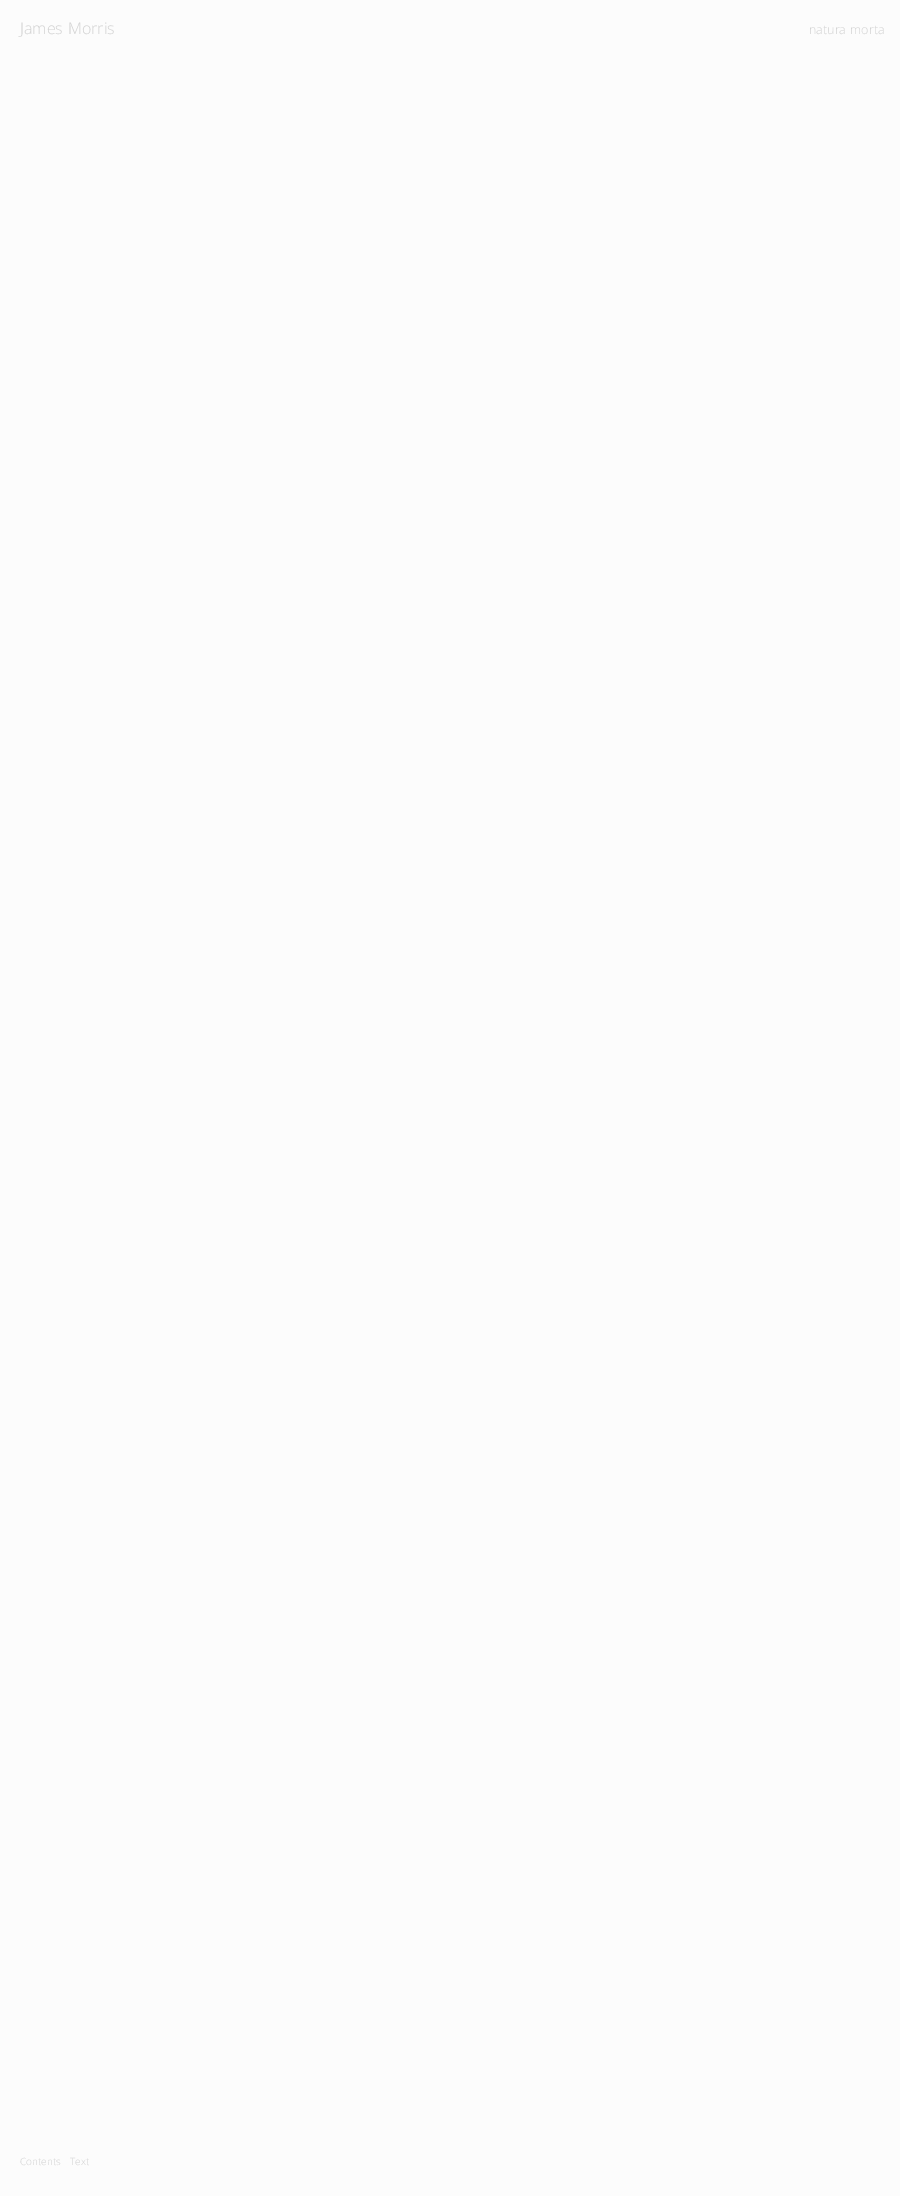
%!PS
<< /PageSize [900 2196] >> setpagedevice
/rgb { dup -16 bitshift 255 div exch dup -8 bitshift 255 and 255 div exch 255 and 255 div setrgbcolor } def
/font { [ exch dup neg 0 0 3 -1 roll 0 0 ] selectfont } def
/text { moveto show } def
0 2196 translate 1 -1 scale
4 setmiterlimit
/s1 { /OpenSans-Light 10 font 16#D2D2D2 rgb } def
16#FCFCFC rgb
0 0 900 2196 rectfill
/OpenSans-Light 16 font
16#D2D2D2 rgb
20 34 moveto 1 0 32 (James Morris) widthshow
/OpenSans-Light 12.5 font
809 34 moveto 1 0 32 (natura morta) widthshow
s1
(Contents) 20 2165 text
(Text) 70 2165 text
showpage
